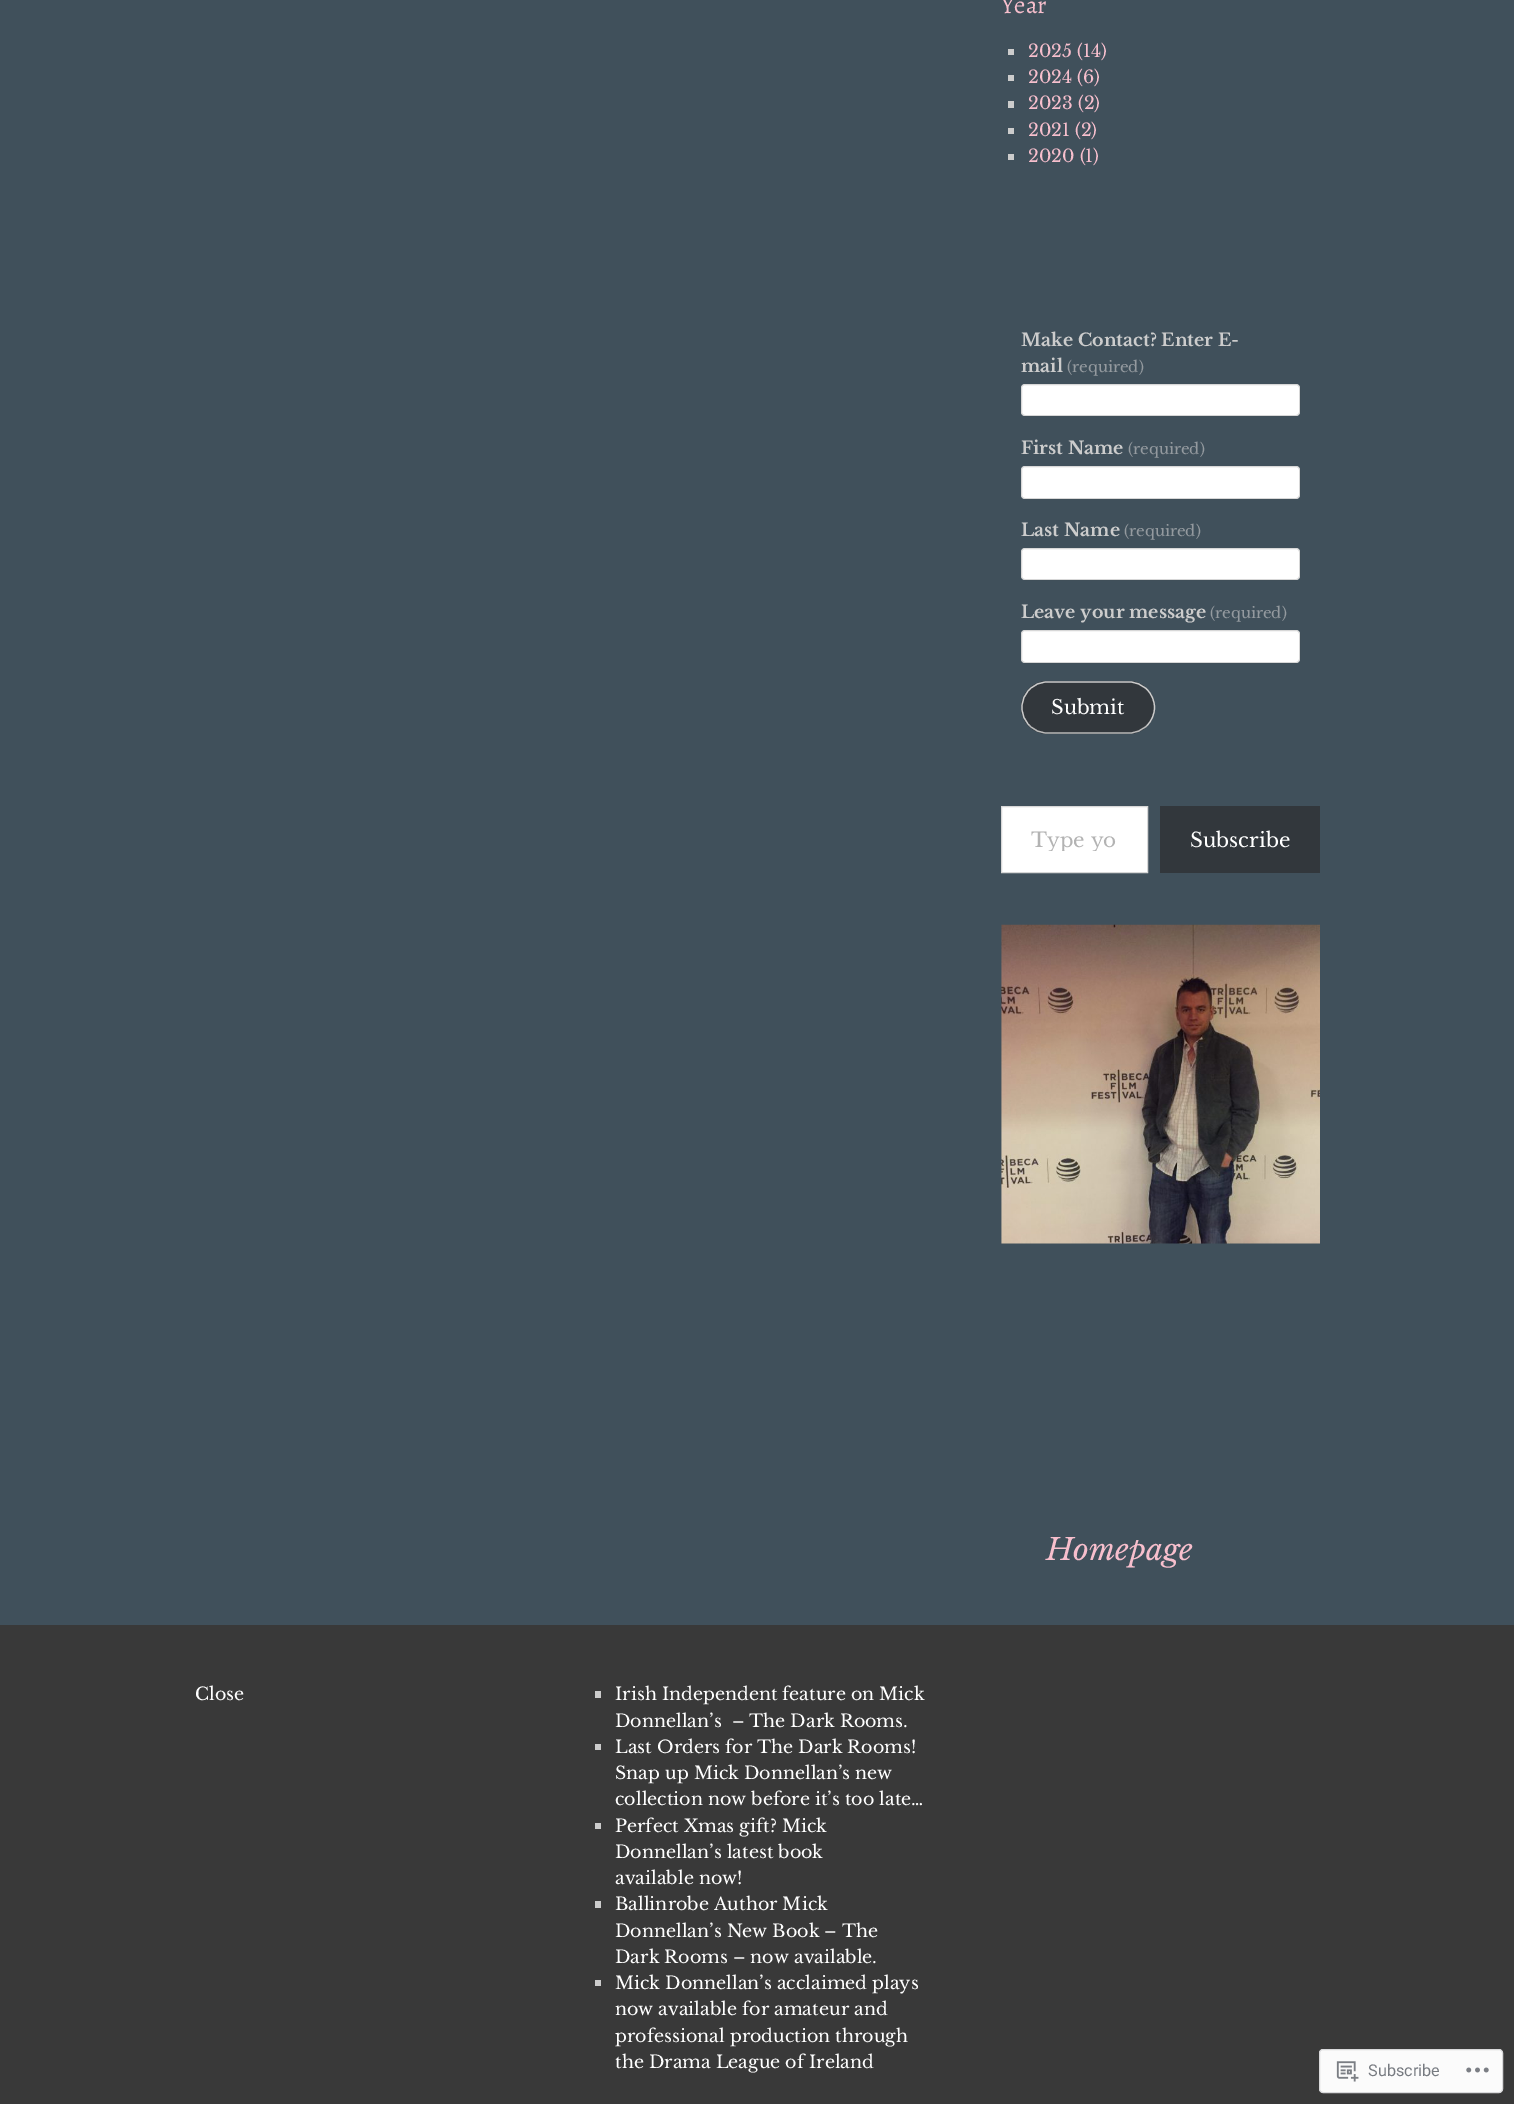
%!PS
<< /PageSize [1514 2104] /PageUsesTransparency true >> setpagedevice
/rgb { dup -16 bitshift 255 div exch dup -8 bitshift 255 and 255 div exch 255 and 255 div setrgbcolor } def
/font { [ exch dup neg 0 0 3 -1 roll 0 0 ] selectfont } def
/text { moveto show } def
/alpha { dup .setfillconstantalpha .setstrokeconstantalpha } def
/roundrect { 5 dict begin { /r /h /w /y /x } { exch def } forall
  x r add y moveto x w add y 2 copy h add r arct x w add y h add x 1 index r arct
  x y h add x y r arct x y 2 copy exch w add exch r arct closepath end } def
/picture { 5 dict begin { /h /w /y /x /name } { exch def } forall
  gsave x y translate w h scale
  w h 8 [w 0 0 h 0 0] name (r) file false 3 colorimage grestore end } def
0 .pushpdf14devicefilter
0 2104 translate 1 -1 scale
4 setmiterlimit
/s1 { /Alegreya-Regular 25 font 16#F7BFCD rgb } def
/s2 { /LibreBaskerville-Regular 17.5 font 16#F7BFCD rgb } def
/s3 { /LibreBaskerville-Bold 17.5 font 16#CCCCCC rgb } def
/s4 { /LibreBaskerville-Regular 15 font 16#949A9F rgb } def
/s5 { /LibreBaskerville-Regular 19.5 font 16#FFFFFF rgb } def
/s6 { /LibreBaskerville-Regular 20 font 16#B3B3B3 rgb } def
/s7 { /LibreBaskerville-Regular 20 font 16#FFFFFF rgb } def
/s8 { /LibreBaskerville-Italic 30 font 16#F7BFCD rgb } def
/s9 { /LibreBaskerville-Regular 17.5 font 16#FFFFFF rgb } def
/s10 { /Roboto-Regular 16.25 font 16#777B81 rgb } def
16#FFFFFF rgb
0 0 1514 2104 rectfill
gsave 0 0 moveto 1514 0 lineto 1514 1625 lineto 0 1625 lineto closepath clip newpath 563 -621 translate 350 350 scale
<< /ShadingType 3 /ColorSpace /DeviceRGB /Coords [0 0 0 0 0 1] /Extend [true true] /Function << /FunctionType 2 /Domain [0 1] /C0 [0.4 0.451 0.486] /C1 [0.251 0.314 0.357] /N 1 >> >> shfill grestore
s1
(Year) 1001 13 text
16#CCCCCC rgb
1008 49 6 6 rectfill
s2
(2025 \(14\)) 1028 57 text
16#CCCCCC rgb
1008 75 6 6 rectfill
s2
(2024 \(6\)) 1028 83 text
16#CCCCCC rgb
1008 101 6 7 rectfill
s2
(2023 \(2\)) 1028 109 text
16#CCCCCC rgb
1008 128 6 6 rectfill
s2
(2021 \(2\)) 1028 136 text
16#CCCCCC rgb
1008 154 6 6 rectfill
s2
(2020 \(1\)) 1028 162 text
s3
(Make Contact? Enter E-) 1021 346 text
(mail) 1021 372 text
s4
(\(required\)) 1067 372 text
16#FFFFFF rgb
1021 384 279 32 4 roundrect fill
0.2 alpha
16#393939 rgb
1021.5 384.5 278 31 3.5 roundrect stroke
1 alpha
s3
(First Name) 1021 454 text
s4
(\(required\)) 1128 454 text
16#FFFFFF rgb
1021 466 279 33 4 roundrect fill
0.2 alpha
16#393939 rgb
1021.5 466.5 278 32 3.5 roundrect stroke
1 alpha
s3
(Last Name) 1021 536 text
s4
(\(required\)) 1124 536 text
16#FFFFFF rgb
1021 548 279 32 4 roundrect fill
0.2 alpha
16#393939 rgb
1021.5 548.5 278 31 3.5 roundrect stroke
1 alpha
s3
(Leave your message) 1021 618 text
s4
(\(required\)) 1210 618 text
16#FFFFFF rgb
1021 630 279 33 4 roundrect fill
0.2 alpha
16#393939 rgb
1021.5 630.5 278 32 3.5 roundrect stroke
1 alpha
16#32373C rgb
1021 681 134 53 26.5 roundrect fill
16#BBBBBB rgb
1.2 setlinewidth
1147 725.5 moveto 1142 730.5 1135.5 733 1129 733 curveto 1047.5 733 lineto 1040.5 733 1034 730.5 1029.5 725.5 curveto stroke
16#CCCCCC rgb
1029.5 725.5 moveto 1024.5 721 1022 714.5 1022 707.5 curveto 1022 700.5 1024.5 694 1029.5 689.5 curveto 1034 684.5 1040.5 682 1047.5 682 curveto 1129 682 lineto 1135.5 682 1142 684.5 1147 689.5 curveto 1151.5 694 1154.5 700.5 1154.5 707.5 curveto 1154.5 714.5 1151.5 721 1147 725.5 curveto stroke
s5
(Submit) 1051 714 text
1001.5 806.5 moveto 1147.5 806.5 lineto 1147.5 872.5 lineto 1001.5 872.5 lineto closepath gsave fill grestore
16#D7D7D7 rgb
1 setlinewidth
stroke
gsave
1031 826 87 25 rectclip
s6
(Type yo) 1031 847 text
grestore
16#32373C rgb
1160 806 160 67 rectfill
s7
(Subscribe) 1190 847 text
(pic1.raw) 1001 924 319 320 picture
s8
(Homepage) 1046 1560 text
16#393939 rgb
0 1625 1514 479 rectfill
s9
(Close) 195 1700 text
16#CCCCCC rgb
595 1691 6 7 rectfill
s9
(Irish Independent feature on Mick) 615 1700 text
(Donnellan’s  – The Dark Rooms.) 615 1727 text
16#CCCCCC rgb
595 1744 6 6 rectfill
s9
(Last Orders for The Dark Rooms!) 615 1753 text
(Snap up Mick Donnellan’s new) 615 1779 text
(collection now before it’s too late…) 615 1805 text
16#CCCCCC rgb
595 1823 6 6 rectfill
s9
(Perfect Xmas gift? Mick) 615 1832 text
(Donnellan’s latest book) 615 1858 text
(available now!) 615 1884 text
16#CCCCCC rgb
595 1901 6 7 rectfill
s9
(Ballinrobe Author Mick) 615 1910 text
(Donnellan’s New Book – The) 615 1937 text
(Dark Rooms – now available.) 615 1963 text
16#CCCCCC rgb
595 1980 6 6 rectfill
s9
(Mick Donnellan’s acclaimed plays) 615 1989 text
(now available for amateur and) 615 2015 text
(professional production through) 615 2042 text
(the Drama League of Ireland) 615 2068 text
16#FBFBFB rgb
1319.5 2049.5 183 43 3.5 roundrect gsave fill grestore
16#D9D9DB rgb
stroke
(pic2.raw) 1336 2061 23 21 picture
s10
(Subscribe) 1368 2076 text
(pic3.raw) 1466 2067 23 6 picture
.poppdf14devicefilter showpage
